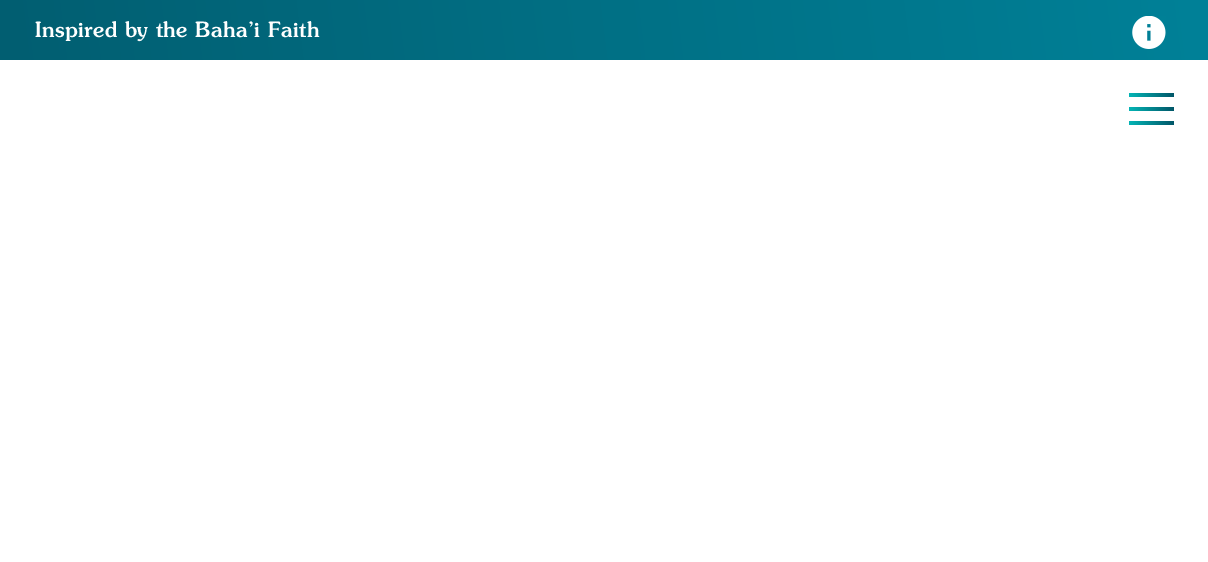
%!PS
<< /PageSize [1208 562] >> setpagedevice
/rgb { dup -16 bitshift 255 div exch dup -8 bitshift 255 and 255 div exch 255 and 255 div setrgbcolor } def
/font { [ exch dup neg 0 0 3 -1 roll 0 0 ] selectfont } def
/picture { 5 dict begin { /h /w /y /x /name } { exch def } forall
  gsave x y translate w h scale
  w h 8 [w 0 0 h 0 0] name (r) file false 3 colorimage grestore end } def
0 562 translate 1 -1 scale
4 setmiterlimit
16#FFFFFF rgb
0 0 1208 562 rectfill
gsave 0 0 moveto 1208 0 lineto 1208 60 lineto 0 60 lineto closepath clip newpath
<< /ShadingType 2 /ColorSpace /DeviceRGB /Coords [-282 139 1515 -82] /Extend [true true] /Function << /FunctionType 2 /Domain [0 1] /C0 [0.004 0.337 0.408] /C1 [0 0.541 0.635] /N 1 >> >> shfill grestore
/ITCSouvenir-Medium 21 font
35 37 moveto 0.5 0 (Inspired by the Baha’i Faith) ashow
(pic1.raw) 1132 16 34 33 picture
gsave 1129 93 moveto 1174 93 lineto 1174 97 lineto 1129 97 lineto closepath clip newpath
<< /ShadingType 2 /ColorSpace /DeviceRGB /Coords [1129 95 1174 95] /Extend [true true] /Function << /FunctionType 2 /Domain [0 1] /C0 [0.016 0.71 0.71] /C1 [0.004 0.337 0.408] /N 1 >> >> shfill grestore
gsave 1129 107 moveto 1174 107 lineto 1174 111 lineto 1129 111 lineto closepath clip newpath
<< /ShadingType 2 /ColorSpace /DeviceRGB /Coords [1129 109 1174 109] /Extend [true true] /Function << /FunctionType 2 /Domain [0 1] /C0 [0.016 0.71 0.71] /C1 [0.004 0.337 0.408] /N 1 >> >> shfill grestore
gsave 1129 121 moveto 1174 121 lineto 1174 125 lineto 1129 125 lineto closepath clip newpath
<< /ShadingType 2 /ColorSpace /DeviceRGB /Coords [1129 123 1174 123] /Extend [true true] /Function << /FunctionType 2 /Domain [0 1] /C0 [0.016 0.71 0.71] /C1 [0.004 0.337 0.408] /N 1 >> >> shfill grestore
showpage
